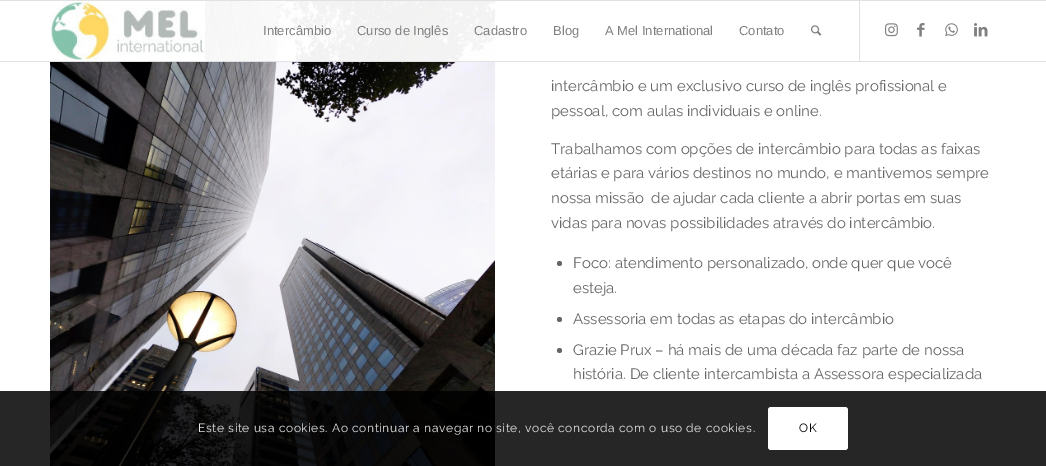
%!PS
<< /PageSize [1046 466] /PageUsesTransparency true >> setpagedevice
/rgb { dup -16 bitshift 255 div exch dup -8 bitshift 255 and 255 div exch 255 and 255 div setrgbcolor } def
/font { [ exch dup neg 0 0 3 -1 roll 0 0 ] selectfont } def
/text { moveto show } def
/alpha { dup .setfillconstantalpha .setstrokeconstantalpha } def
/circle { newpath 0 360 arc closepath } def
/roundrect { 5 dict begin { /r /h /w /y /x } { exch def } forall
  x r add y moveto x w add y 2 copy h add r arct x w add y h add x 1 index r arct
  x y h add x y r arct x y 2 copy exch w add exch r arct closepath end } def
/picture { 5 dict begin { /h /w /y /x /name } { exch def } forall
  gsave x y translate w h scale
  w h 8 [w 0 0 h 0 0] name (r) file false 3 colorimage grestore end } def
0 .pushpdf14devicefilter
0 466 translate 1 -1 scale
4 setmiterlimit
/s1 { /LiberationSans-Regular 13 font 16#808080 rgb } def
/s2 { /Raleway-Regular 15 font 16#666666 rgb } def
16#FFFFFF rgb
0 0 1046 466 rectfill
(pic7.raw) 50 1 445 465 picture
0.95 alpha
50 1 445 60 rectfill
1 alpha
16#E1E1E1 rgb
0 0 1046 1 rectfill
0 61 1046 1 rectfill
(pic1.raw) 50 1 155 60 picture
859 1 1 60 rectfill
s1
(Intercâmbio) 263 35 text
(Curso de Inglês) 357 35 text
(Cadastro) 474 35 text
(Blog) 553 35 text
(A Mel International) 605 35 text
(Contato) 739 35 text
(pic2.raw) 811 25 11 11 picture
(pic3.raw) 885 23 13 14 picture
(pic4.raw) 917 23 8 14 picture
(pic5.raw) 945 23 13 14 picture
(pic6.raw) 974 23 14 14 picture
s2
(intercâmbio e um exclusivo curso de inglês profissional e) 551 91 text
(pessoal, com aulas individuais e online.) 551 116 text
(Trabalhamos com opções de intercâmbio para todas as faixas) 551 154 text
(etárias e para vários destinos no mundo, e mantivemos sempre) 551 178 text
(nossa missão  de ajudar cada cliente a abrir portas em suas) 551 203 text
(vidas para novas possibilidades através do intercâmbio.) 551 228 text
559.5 263.5 2.5 circle fill
(Foco: atendimento personalizado, onde quer que você) 573 268 text
(esteja.) 573 293 text
559.5 319.5 2.5 circle fill
(Assessoria em todas as etapas do intercâmbio) 573 324 text
559.5 350.5 2.5 circle fill
(Grazie Prux – há mais de uma década faz parte de nossa) 573 355 text
(história. De cliente intercambista a Assessora especializada) 573 379 text
0.85 alpha
16#000000 rgb
0 391 1046 75 rectfill
/Raleway-Regular 12 font
1 alpha
16#E8E8E8 rgb
198 432 moveto 0.6 0 (Este site usa cookies. Ao continuar a navegar no site, você concorda com o uso de cookies.) ashow
16#FFFFFF rgb
768 407 80 43 3 roundrect fill
16#000000 rgb
799 432 moveto 0.6 0 (OK) ashow
.poppdf14devicefilter showpage
